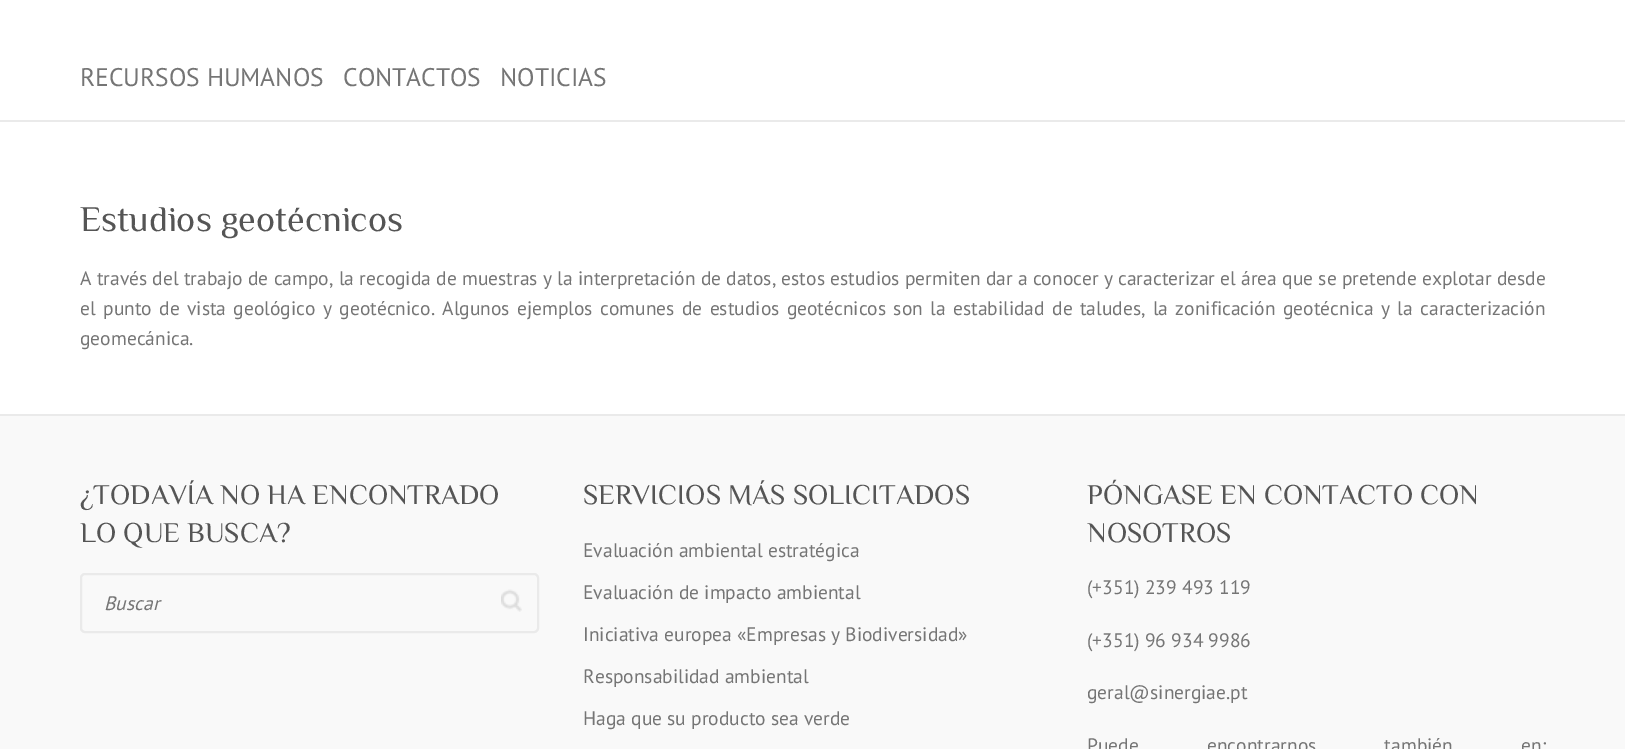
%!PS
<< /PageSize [1625 749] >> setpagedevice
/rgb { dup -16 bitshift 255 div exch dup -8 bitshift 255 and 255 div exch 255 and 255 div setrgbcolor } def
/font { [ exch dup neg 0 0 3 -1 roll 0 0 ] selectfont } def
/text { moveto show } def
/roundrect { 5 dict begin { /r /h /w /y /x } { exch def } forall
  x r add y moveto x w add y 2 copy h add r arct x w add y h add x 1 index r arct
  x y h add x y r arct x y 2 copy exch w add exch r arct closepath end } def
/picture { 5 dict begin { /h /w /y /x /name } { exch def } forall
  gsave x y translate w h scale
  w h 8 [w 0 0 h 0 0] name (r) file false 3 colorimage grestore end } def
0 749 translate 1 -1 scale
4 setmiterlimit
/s1 { /PTSans-Regular 25.5 font 16#757575 rgb } def
/s2 { /Philosopher-Regular 36 font 16#555555 rgb } def
/s3 { /PTSans-Regular 19.5 font 16#757575 rgb } def
/s4 { /Philosopher-Regular 28.5 font 16#555555 rgb } def
/s5 { /PTSans-Italic 19.5 font 16#757575 rgb } def
16#FFFFFF rgb
0 0 1625 749 rectfill
16#EAEAEA rgb
0 120 1625 2 rectfill
s1
(RECURSOS HUMANOS) 80 86 text
(CONTACTOS) 343 86 text
(NOTICIAS) 500 86 text
s2
(Estudios geotécnicos) 80 231 text
/PTSans-Regular 19.5 font
16#757575 rgb
80 285 moveto 0.1 0 32 (A través del trabajo de campo, la recogida de muestras y la interpretación de datos, estos estudios permiten dar a conocer y caracterizar el área que se pretende explotar desde) widthshow
80 315 moveto 2.2 0 32 (el punto de vista geológico y geotécnico. Algunos ejemplos comunes de estudios geotécnicos son la estabilidad de taludes, la zonificación geotécnica y la caracterización) widthshow
(geomecánica.) 80 345 text
16#F9F9F9 rgb
0 416 1625 333 rectfill
16#EAEAEA rgb
0 414 1625 2 rectfill
s4
(¿TODAVÍA NO HA ENCONTRADO) 80 504 text
(LO QUE BUSCA?) 80 542 text
(pic1.raw) 501 589 21 23 picture
16#EAEAEA rgb
2 setlinewidth
81 574 457 58 4 roundrect stroke
s5
(Buscar) 104 610 text
s4
(SERVICIOS MÁS SOLICITADOS) 583 504 text
s3
(Evaluación ambiental estratégica) 583 557 text
(Evaluación de impacto ambiental) 583 599 text
(Iniciativa europea «Empresas y Biodiversidad») 583 641 text
(Responsabilidad ambiental) 583 683 text
(Haga que su producto sea verde) 583 725 text
s4
(PÓNGASE EN CONTACTO CON) 1087 504 text
(NOSOTROS) 1087 542 text
s3
(\(+351\) 239 493 119) 1087 594 text
(\(+351\) 96 934 9986) 1087 647 text
(geral@sinergiae.pt) 1087 699 text
1087 752 moveto 63 0 32 (Puede encontrarnos también en:) widthshow
showpage
